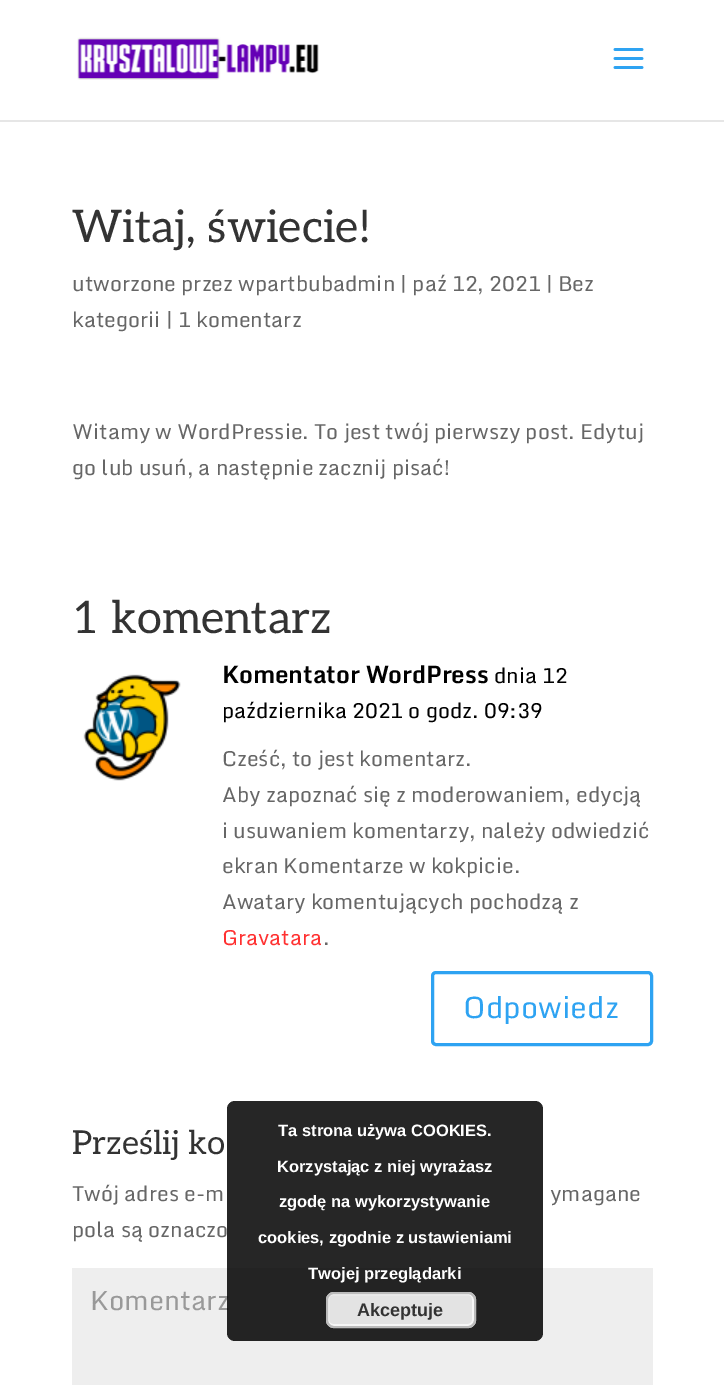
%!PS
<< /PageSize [724 1385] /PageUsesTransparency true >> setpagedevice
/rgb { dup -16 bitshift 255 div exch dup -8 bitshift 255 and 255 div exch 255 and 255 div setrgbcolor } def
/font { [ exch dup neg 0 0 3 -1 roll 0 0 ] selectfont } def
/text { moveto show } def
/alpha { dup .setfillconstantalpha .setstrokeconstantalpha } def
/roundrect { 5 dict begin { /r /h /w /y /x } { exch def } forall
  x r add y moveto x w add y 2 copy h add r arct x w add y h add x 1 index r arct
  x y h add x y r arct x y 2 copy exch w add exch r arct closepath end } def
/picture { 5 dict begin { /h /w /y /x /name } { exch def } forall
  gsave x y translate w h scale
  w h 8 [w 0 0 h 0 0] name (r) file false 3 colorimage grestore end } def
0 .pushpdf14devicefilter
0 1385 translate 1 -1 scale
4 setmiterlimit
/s1 { /Aleo-Regular 45 font 16#333333 rgb } def
/s2 { /Monda-Regular 21 font 16#666666 rgb } def
/s3 { /Monda-Bold 24 font 16#000000 rgb } def
/s4 { /Monda-Regular 21 font 16#000000 rgb } def
/s5 { /Monda-Regular 21 font 16#FF3030 rgb } def
/s6 { /Monda-Regular 30 font 16#2EA3F2 rgb } def
/s7 { /Aleo-Regular 33 font 16#333333 rgb } def
/s8 { /Monda-Regular 27 font 16#999999 rgb } def
/s9 { /LiberationSans-Bold 16.5 font 16#FFFFFF rgb } def
/s10 { /LiberationSans-Bold 18 font 16#333333 rgb } def
16#FFFFFF rgb
0 0 724 1385 rectfill
16#E6E6E6 rgb
0 120 moveto 0 122 lineto 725 122 lineto 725 2 lineto 724 2 lineto 724 120 lineto closepath fill
(pic1.raw) 77 37 242 43 picture
(pic2.raw) 613 48 31 21 picture
s1
(Witaj, świecie!) 72 242 text
s2
(utworzone przez wpartbubadmin | paź 12, 2021 | Bez) 72 291 text
(kategorii | 1 komentarz) 72 327 text
(Witamy w WordPressie. To jest twój pierwszy post. Edytuj) 72 439 text
(go lub usuń, a następnie zacznij pisać!) 72 475 text
s1
(1 komentarz) 72 633 text
(pic3.raw) 83 674 98 107 picture
s3
(Komentator WordPress) 222 683 text
s4
(dnia 12) 494 683 text
(października 2021 o godz. 09:39) 222 718 text
s2
(Cześć, to jest komentarz.) 222 766 text
(Aby zapoznać się z moderowaniem, edycją) 222 802 text
(i usuwaniem komentarzy, należy odwiedzić) 222 838 text
(ekran Komentarze w kokpicie.) 222 873 text
(Awatary komentujących pochodzą z) 222 909 text
s5
(Gravatara) 222 945 text
s2
(.) 323 945 text
16#2EA3F2 rgb
3 setlinewidth
432.5 972.5 219 72 3.5 roundrect stroke
s6
(Odpowiedz) 463 1018 text
s7
(Prześlij ko) 72 1154 text
s2
(Twój adres e-m) 72 1201 text
(ymagane) 550 1201 text
(pola są oznaczo) 72 1237 text
16#EEEEEE rgb
72 1268 581 117 rectfill
s8
(Komentarz) 90 1310 text
0.85 alpha
16#000000 rgb
227 1101 316 240 8 roundrect fill
1 alpha
s9
(Ta strona używa COOKIES.) 278 1136 text
(Korzystając z niej wyrażasz) 277 1172 text
(zgodę na wykorzystywanie) 279 1207 text
(cookies, zgodnie z ustawieniami) 258 1243 text
(Twojej przeglądarki) 308 1279 text
16#E3E3E3 rgb
326 1292 150 36 8 roundrect fill
16#F6F6F6 rgb
2 setlinewidth
328 1294 145 31 5 roundrect stroke
16#BBBBBB rgb
327 1293 148 34 7 roundrect stroke
s10
(Akceptuje) 357 1316 text
.poppdf14devicefilter showpage
